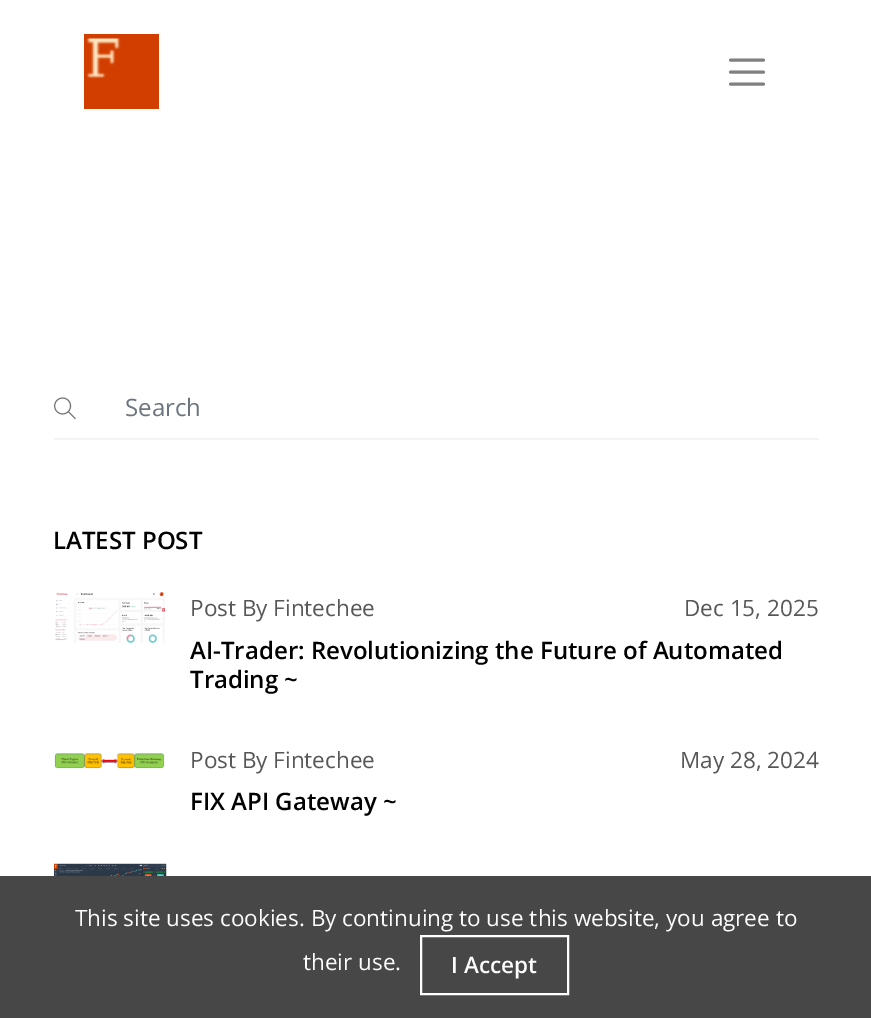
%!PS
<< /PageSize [871 1018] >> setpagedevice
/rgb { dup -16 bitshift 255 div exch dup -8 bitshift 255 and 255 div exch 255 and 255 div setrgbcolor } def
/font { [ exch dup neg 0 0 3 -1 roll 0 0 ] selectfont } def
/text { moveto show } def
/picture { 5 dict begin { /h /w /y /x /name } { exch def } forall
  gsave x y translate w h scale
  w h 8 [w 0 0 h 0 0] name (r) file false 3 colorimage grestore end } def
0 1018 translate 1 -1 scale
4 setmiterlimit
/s1 { /OpenSans-Regular 24 font 16#6C757D rgb } def
/s2 { /OpenSans-SemiBold 24 font 16#000000 rgb } def
/s3 { /OpenSans-Regular 22.5 font 16#585757 rgb } def
/s4 { /OpenSans-Regular 22.5 font 16#FDFDFD rgb } def
/s5 { /OpenSans-SemiBold 22.5 font 16#FDFDFD rgb } def
16#FFFFFF rgb
0 0 871 1018 rectfill
(pic1.raw) 84 34 75 75 picture
16#808080 rgb
3 setlinewidth
1 setlinecap
730.5 60 moveto 763.5 60 lineto 730.5 72 moveto 763.5 72 lineto 730.5 84 moveto 763.5 84 lineto stroke
16#F4F4F4 rgb
54 438 765 2 rectfill
(pic2.raw) 54 397 22 23 picture
s1
(Search) 125 416 text
s2
(LATEST POST) 53 549 text
(pic3.raw) 55 592 110 51 picture
s3
(Post By Fintechee) 190 616 text
(Dec 15, 2025) 684 616 text
s2
(AI-Trader: Revolutionizing the Future of Automated) 190 659 text
(Trading ~) 190 688 text
(pic4.raw) 54 753 111 16 picture
s3
(Post By Fintechee) 190 768 text
(May 28, 2024) 680 768 text
s2
(FIX API Gateway ~) 190 810 text
(pic5.raw) 54 863 113 13 picture
16#474747 rgb
0 876 871 142 rectfill
s4
(This site uses cookies. By continuing to use this website, you agree to) 75 926 text
(their use.) 303 970 text
16#FFFFFF rgb
2 setlinewidth
0 setlinecap
421 936 147 58 rectstroke
s5
(I Accept) 451 973 text
showpage
